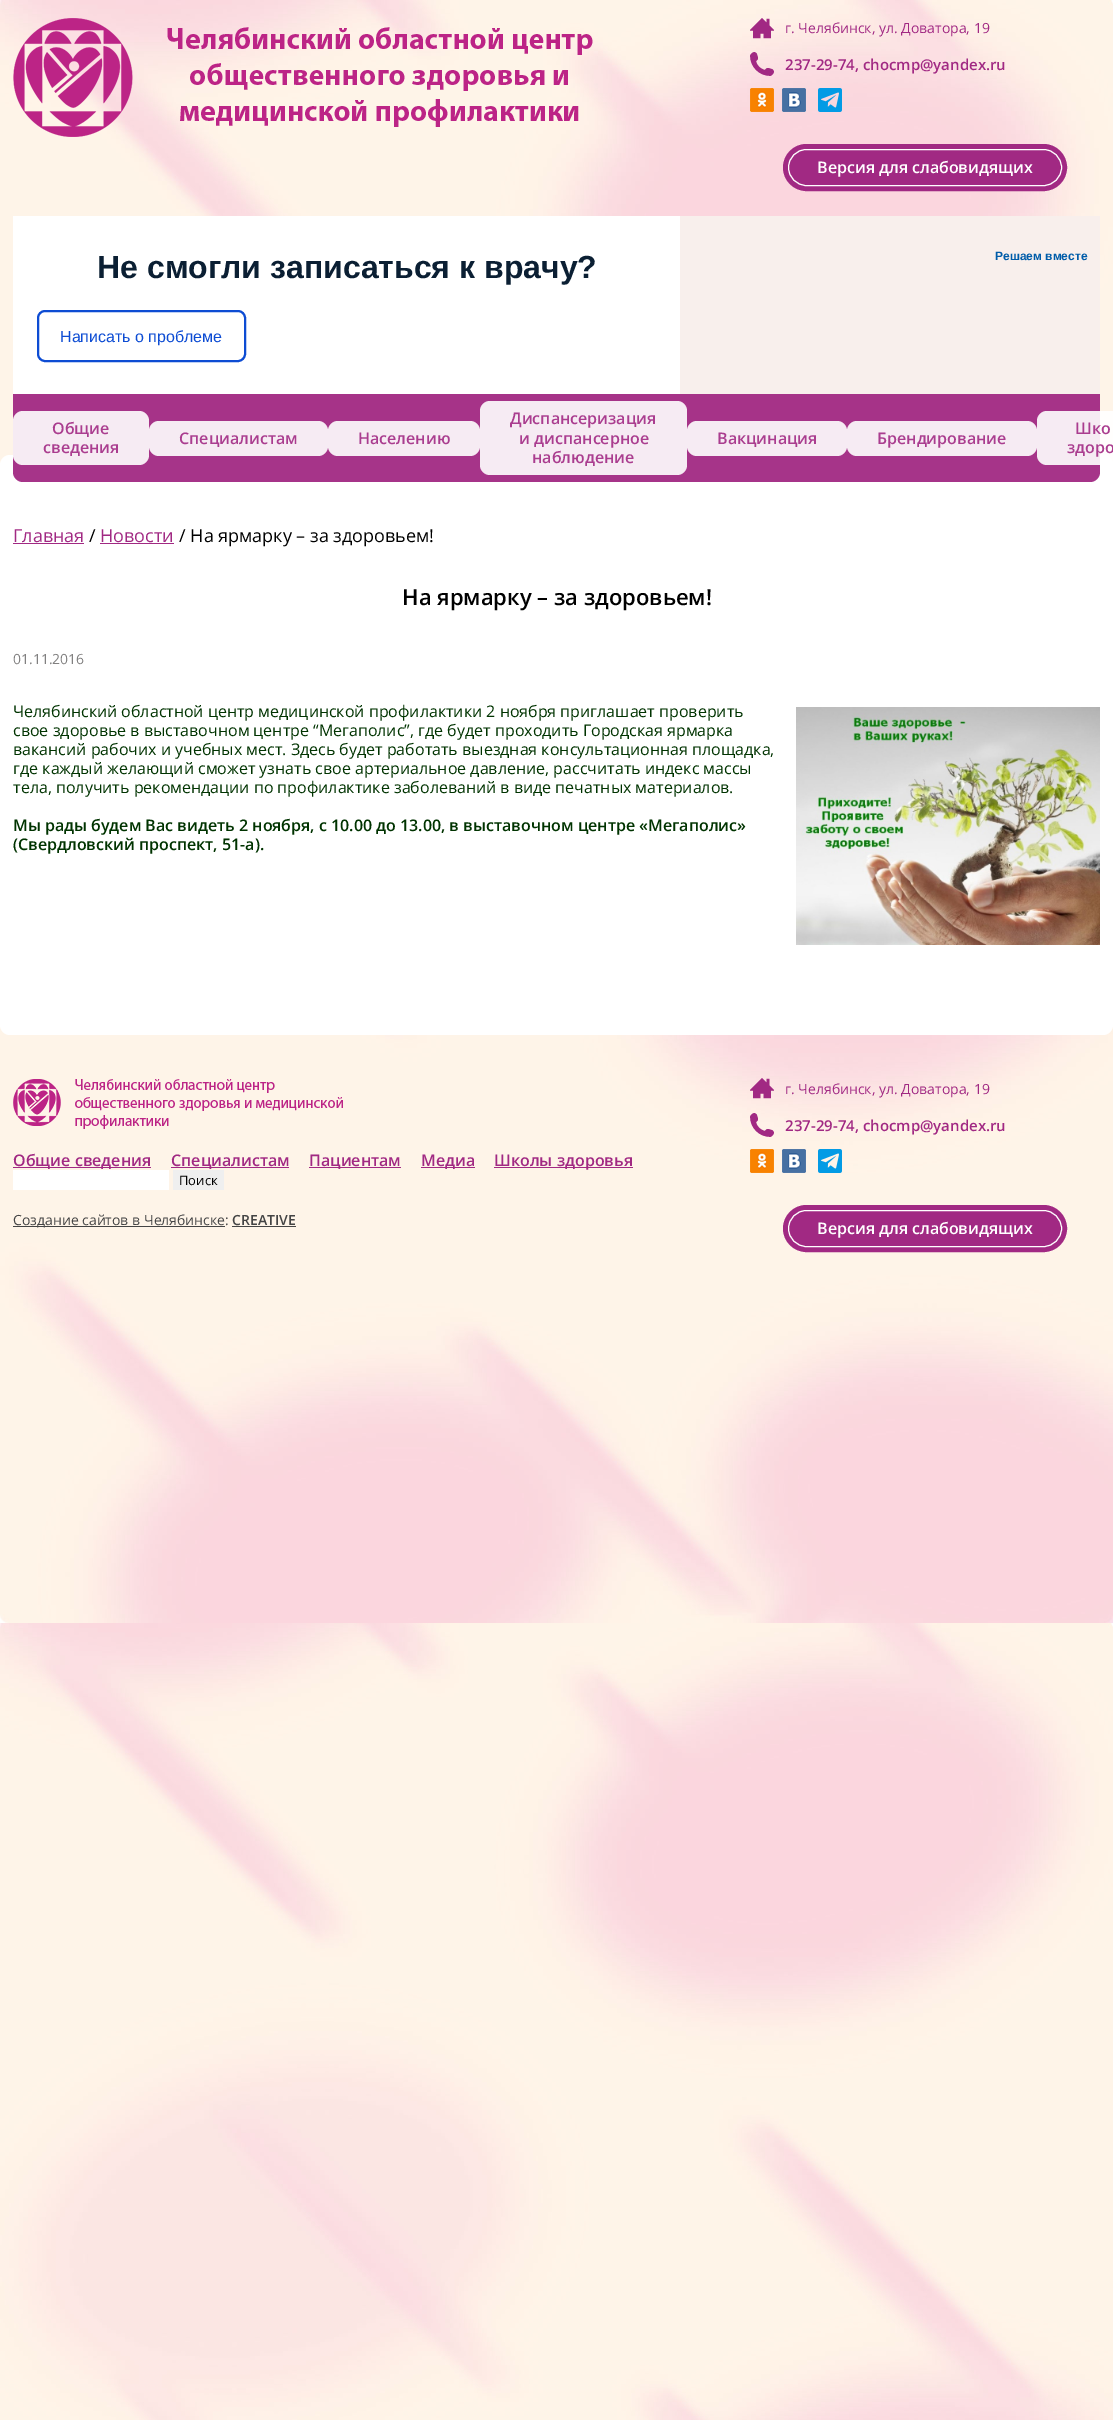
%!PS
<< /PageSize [1113 2420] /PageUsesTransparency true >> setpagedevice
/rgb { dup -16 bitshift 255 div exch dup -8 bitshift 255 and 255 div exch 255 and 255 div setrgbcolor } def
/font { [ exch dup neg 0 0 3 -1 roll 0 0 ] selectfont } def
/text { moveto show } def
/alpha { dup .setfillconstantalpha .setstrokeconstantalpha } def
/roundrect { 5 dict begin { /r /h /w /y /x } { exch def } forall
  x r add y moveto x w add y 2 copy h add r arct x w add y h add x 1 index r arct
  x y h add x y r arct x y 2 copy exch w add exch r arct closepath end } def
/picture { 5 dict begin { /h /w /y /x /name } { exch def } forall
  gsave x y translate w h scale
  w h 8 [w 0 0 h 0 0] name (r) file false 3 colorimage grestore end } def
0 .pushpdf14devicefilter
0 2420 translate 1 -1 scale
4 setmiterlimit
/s1 { /OpenSans-Regular 14 font 16#A12983 rgb } def
/s2 { /OpenSans-SemiBold 15 font 16#A12983 rgb } def
/s3 { /OpenSans-SemiBold 16 font 16#FFFFFF rgb } def
/s4 { /LiberationSans-Bold 32 font 16#0B1F33 rgb } def
/s5 { /LiberationSans-Regular 16 font 16#0D4CD3 rgb } def
/s6 { /LiberationSans-Bold 12 font 16#005CA9 rgb } def
/s7 { /OpenSans-SemiBold 16 font 16#AA3D8F rgb } def
/s8 { /OpenSans-Regular 18 font 16#A12983 rgb } def
/s9 { /OpenSans-Regular 18 font 16#000000 rgb } def
/s10 { /OpenSans-SemiBold 22 font 16#000000 rgb } def
/s11 { /OpenSans-Regular 14 font 16#818080 rgb } def
/s12 { /OpenSans-Regular 16 font 16#003300 rgb } def
/s13 { /OpenSans-SemiBold 16 font 16#003300 rgb } def
/s14 { /OpenSans-SemiBold 16 font 16#A12983 rgb } def
/s15 { /OpenSans-Regular 13 font 16#000000 rgb } def
/s16 { /OpenSans-Regular 14 font 16#444444 rgb } def
/s17 { /OpenSans-SemiBold 14 font 16#444444 rgb } def
16#FFFFFF rgb
0 0 1113 2420 rectfill
(pic1.raw) 0 0 1113 2420 picture
(pic2.raw) 13 18 580 119 picture
(pic3.raw) 750 18 24 21 picture
s1
(г. Челябинск, ул. Доватора, 19) 785 33 text
(pic4.raw) 750 52 24 24 picture
s2
(237-29-74, chocmp@yandex.ru) 785 70 text
(pic5.raw) 750 88 24 24 picture
(pic6.raw) 782 88 24 24 picture
(pic7.raw) 818 88 24 24 picture
785.5 146.5 279 42 21 roundrect gsave fill grestore
5 setlinewidth
stroke
16#FFFFFF rgb
1 setlinewidth
788.5 149.5 273 36 18 roundrect stroke
s3
(Версия для слабовидящих) 817 173 text
0 455 1113 580 10 roundrect fill
0.95 alpha
16#A12983 rgb
13 216 1087 266 10 roundrect fill
1 alpha
16#FFFFFF rgb
13 216 667 178 rectfill
s4
(Не смогли записаться к врачу?) 97 278 text
16#0D4CD3 rgb
2 setlinewidth
38 311 207 50 7 roundrect stroke
s5
(Написать о проблеме) 60 342 text
16#F8EFEC rgb
680 216 420 178 rectfill
s6
(Решаем вместе) 995 260 text
16#F6EBF3 rgb
13 411 136 54 10 roundrect fill
s7
(Общие) 52 434 text
(сведения) 43 453 text
16#F6EBF3 rgb
149 421 179 35 10 roundrect fill
s7
(Специалистам) 179 444 text
16#F6EBF3 rgb
328 421 152 35 10 roundrect fill
s7
(Населению) 358 444 text
16#F6EBF3 rgb
480 401 207 74 10 roundrect fill
s7
(Диспансеризация) 510 424 text
(и диспансерное) 519 444 text
(наблюдение) 532 463 text
16#F6EBF3 rgb
687 421 160 35 10 roundrect fill
s7
(Вакцинация) 717 444 text
16#F6EBF3 rgb
847 421 190 35 10 roundrect fill
s7
(Брендирование) 877 444 text
0.9 alpha
16#FFFFFF rgb
1037 411 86 54 10 roundrect fill
1 alpha
s7
(Шко) 1075 434 text
(здоро) 1067 453 text
s8
(Главная) 13 542 text
13 543 71 1 rectfill
s9
(/) 89 542 text
s8
(Новости) 100 542 text
100 543 74 1 rectfill
s9
(/ На ярмарку – за здоровьем!) 179 542 text
s10
(На ярмарку – за здоровьем!) 402 605 text
s11
(01.11.2016) 13 664 text
s12
(Челябинский областной центр медицинской профилактики 2 ноября приглашает проверить) 13 717 text
(pic8.raw) 796 707 304 238 picture
(свое здоровье в выставочном центре “Мегаполис”, где будет проходить Городская ярмарка) 13 736 text
(вакансий рабочих и учебных мест. Здесь будет работать выездная консультационная площадка,) 13 755 text
(где каждый желающий сможет узнать свое артериальное давление, рассчитать индекс массы) 13 774 text
(тела, получить рекомендации по профилактике заболеваний в виде печатных материалов.) 13 793 text
s13
(Мы рады будем Вас видеть 2 ноября, с 10.00 до 13.00, в выставочном центре «Мегаполис») 13 831 text
(\(Свердловский проспект, 51-а\).) 13 850 text
(pic9.raw) 13 1079 330 50 picture
16#A12983 rgb
13 1167 138 1 rectfill
(Общие сведения) 13 1166 text
171 1167 118 1 rectfill
(Специалистам) 171 1166 text
309 1167 92 1 rectfill
(Пациентам) 309 1166 text
421 1167 54 1 rectfill
(Медиа) 421 1166 text
494 1167 139 1 rectfill
(Школы здоровья) 494 1166 text
16#FFFFFF rgb
13 1170 156 20 rectfill
16#EFEFEF rgb
173 1170 51 20 rectfill
s15
(Поиск) 179 1185 text
16#444444 rgb
13 1226 212 1 rectfill
s16
(Создание сайтов в Челябинске:) 13 1225 text
s17
(CREATIVE) 232 1225 text
232 1226 64 1 rectfill
(pic10.raw) 750 1078 24 21 picture
s1
(г. Челябинск, ул. Доватора, 19) 785 1094 text
(pic11.raw) 750 1113 24 24 picture
s2
(237-29-74, chocmp@yandex.ru) 785 1131 text
(pic12.raw) 750 1149 24 24 picture
(pic13.raw) 782 1149 24 24 picture
(pic14.raw) 818 1149 24 24 picture
785.5 1207.5 279 42 21 roundrect gsave fill grestore
5 setlinewidth
stroke
16#FFFFFF rgb
1 setlinewidth
788.5 1210.5 273 36 18 roundrect stroke
s3
(Версия для слабовидящих) 817 1234 text
.poppdf14devicefilter showpage
